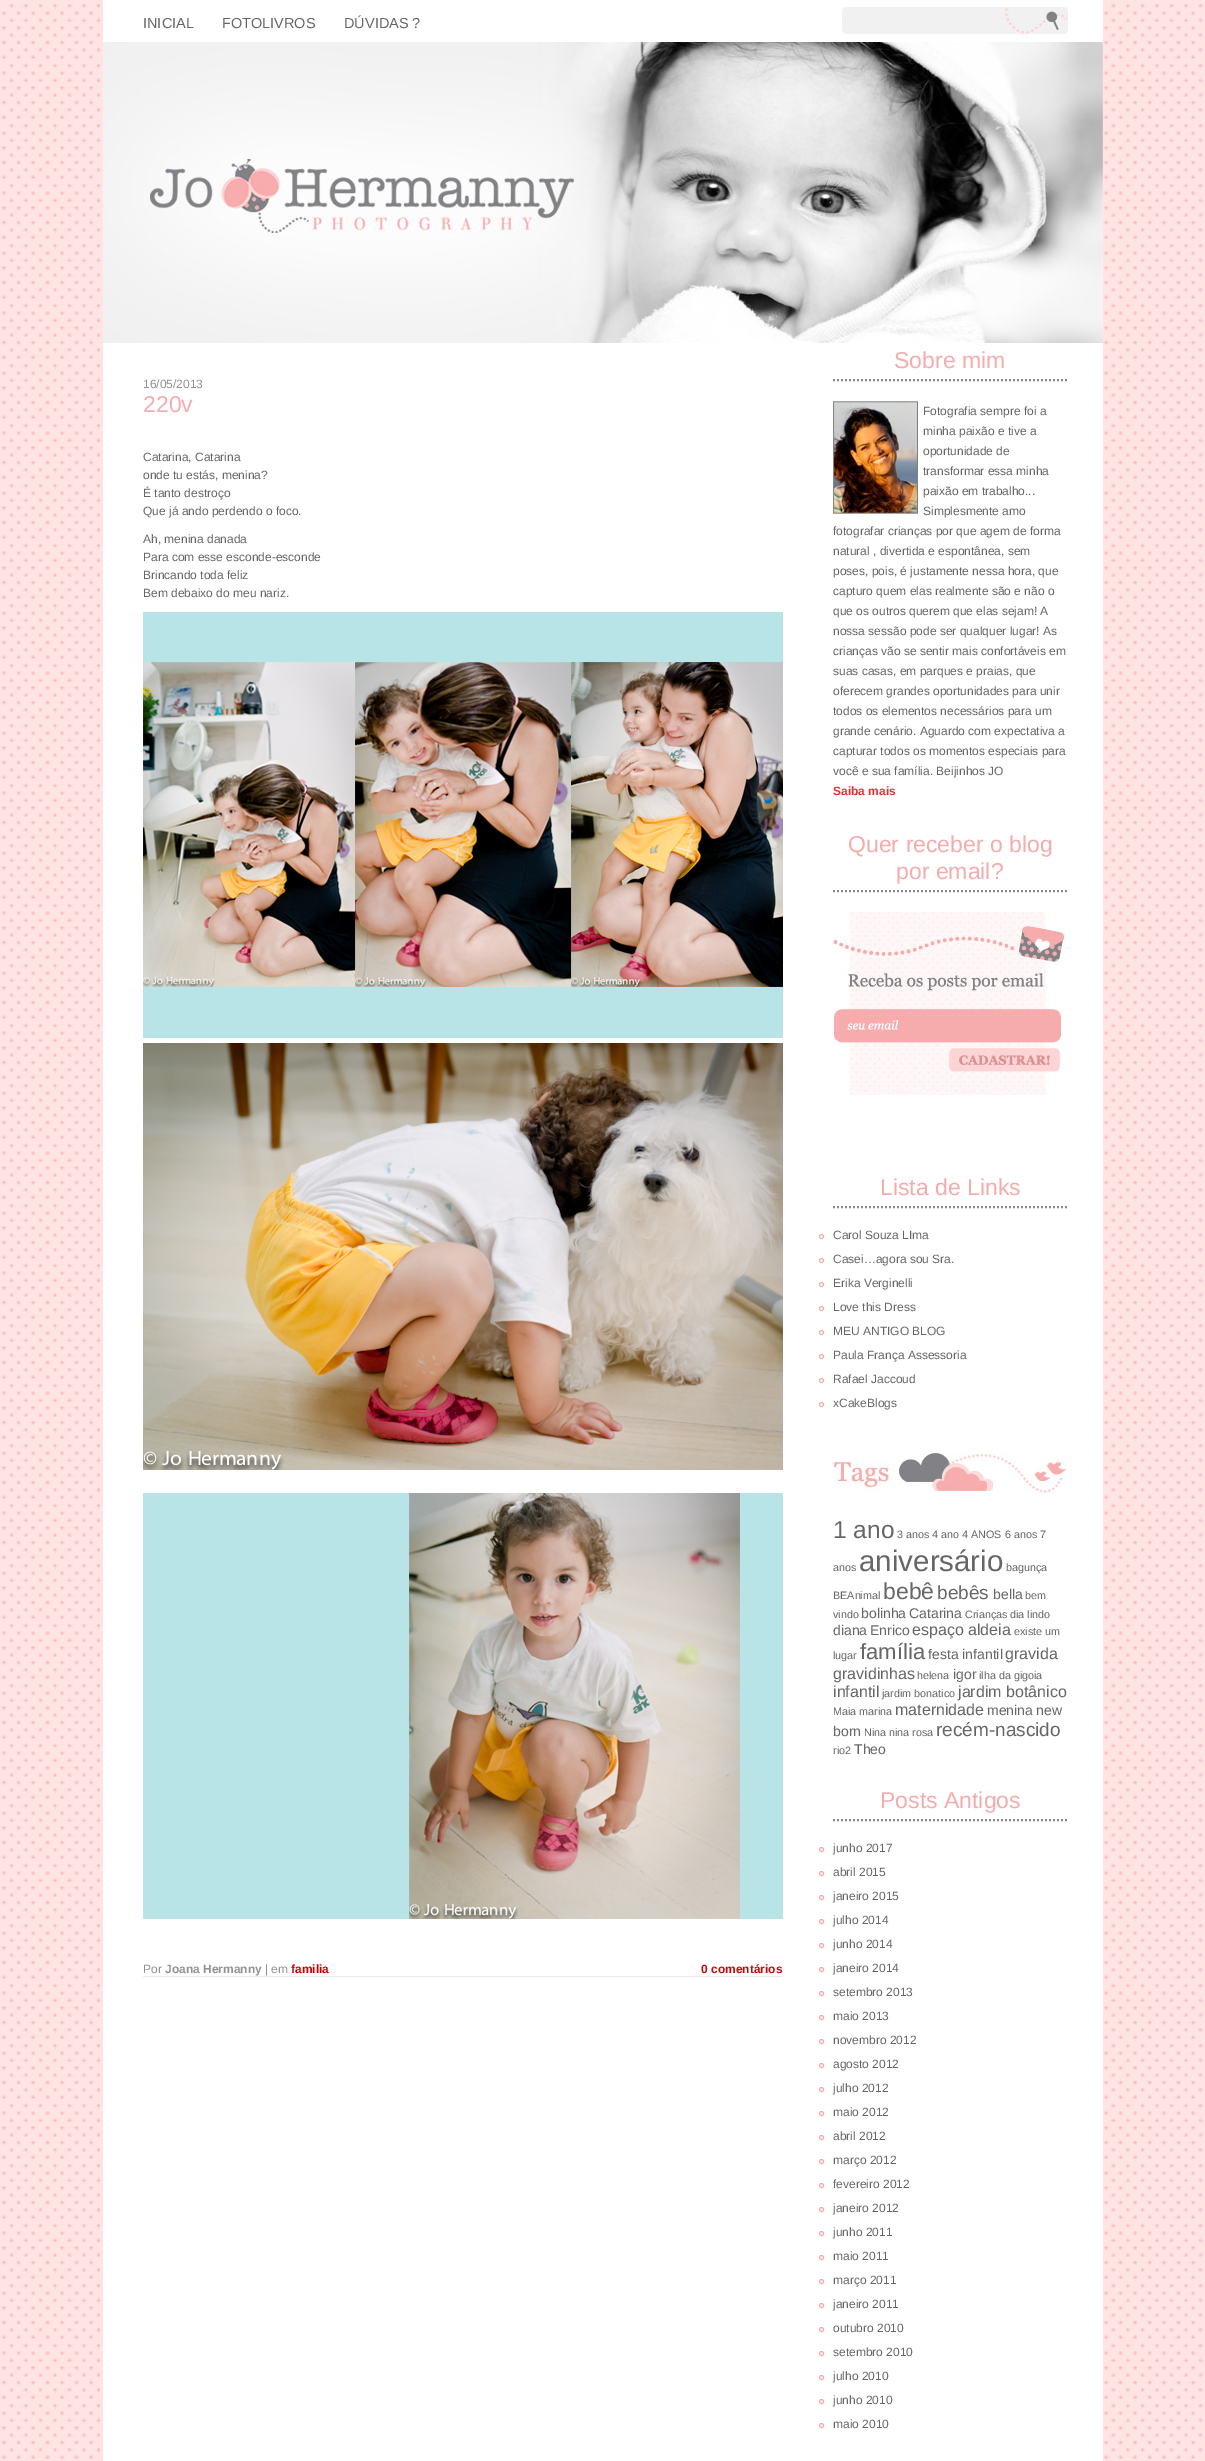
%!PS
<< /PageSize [1205 2461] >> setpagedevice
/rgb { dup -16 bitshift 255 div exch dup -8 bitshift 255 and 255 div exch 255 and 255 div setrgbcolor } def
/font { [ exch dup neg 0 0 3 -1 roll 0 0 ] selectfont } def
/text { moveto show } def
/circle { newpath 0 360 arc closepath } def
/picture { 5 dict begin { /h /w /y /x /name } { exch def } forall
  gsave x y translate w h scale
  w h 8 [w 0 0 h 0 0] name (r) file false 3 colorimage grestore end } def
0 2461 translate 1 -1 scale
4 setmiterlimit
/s1 { /LiberationSans-Regular 14.5 font 16#666666 rgb } def
/s2 { /LiberationSans-Regular 12 font 16#929292 rgb } def
/s3 { /LiberationSans-Regular 23 font 16#F4ACAD rgb } def
/s4 { /LiberationSans-Regular 12 font 16#666666 rgb } def
/s5 { /LiberationSans-Bold 12 font 16#929292 rgb } def
/s6 { /LiberationSans-Bold 12 font 16#CC0000 rgb } def
/s7 { /LiberationSans-Bold 12 font 16#B90E0C rgb } def
/s8 { /LiberationSans-Bold 12 font 16#E43136 rgb } def
/s9 { /LiberationSans-Regular 24.5 font 16#666666 rgb } def
/s10 { /LiberationSans-Regular 10.75 font 16#666666 rgb } def
/s11 { /LiberationSans-Regular 29.5 font 16#666666 rgb } def
/s12 { /LiberationSans-Regular 23 font 16#666666 rgb } def
/s13 { /LiberationSans-Regular 19 font 16#666666 rgb } def
/s14 { /LiberationSans-Regular 14 font 16#666666 rgb } def
/s15 { /LiberationSans-Regular 16 font 16#666666 rgb } def
/s16 { /LiberationSans-Regular 22 font 16#666666 rgb } def
16#FFFFFF rgb
0 0 1205 2461 rectfill
(pic1.raw) 0 0 1205 2461 picture
103 0 1000 42 rectfill
s1
(INICIAL) 143 28 text
(FOTOLIVROS) 222 28 text
(DÚVIDAS ?) 344 28 text
(pic2.raw) 842 7 226 27 picture
(pic3.raw) 103 42 1000 301 picture
16#FFFFFF rgb
103 343 1000 2118 rectfill
s2
(16/05/2013) 143 388 text
s3
(220v) 143 412 text
s4
(Catarina, Catarina) 143 461 text
(onde tu estás, menina?) 143 479 text
(É tanto destroço) 143 497 text
(Que já ando perdendo o foco.) 143 515 text
(Ah, menina danada) 143 543 text
(Para com esse esconde-esconde) 143 561 text
(Brincando toda feliz) 143 579 text
(Bem debaixo do meu nariz.) 143 597 text
(pic4.raw) 143 612 640 426 picture
(pic5.raw) 143 1043 640 427 picture
(pic6.raw) 143 1493 640 426 picture
16#EAEAEA rgb
143 1976 640 1 rectfill
s2
(Por) 143 1973 text
s5
(Joana Hermanny) 165 1973 text
s2
(| em) 265 1973 text
s6
(familia) 291 1973 text
s7
(0 comentários) 701 1973 text
16#8A8A8A rgb
2 setlinewidth
[2 2] 0 setdash
833 380 moveto 1068 380 lineto stroke
s3
(Sobre mim) 894 368 text
(pic7.raw) 833 401 85 113 picture
s4
(Fotografia sempre foi a) 923 415 text
(minha paixão e tive a) 923 435 text
(oportunidade de) 923 455 text
(transformar essa minha) 923 475 text
(paixão em trabalho...) 923 495 text
(Simplesmente amo) 923 515 text
(fotografar crianças por que agem de forma) 833 535 text
(natural , divertida e espontânea, sem) 833 555 text
(poses, pois, é justamente nessa hora, que) 833 575 text
(capturo quem elas realmente são e não o) 833 595 text
(que os outros querem que elas sejam! A) 833 615 text
(nossa sessão pode ser qualquer lugar! As) 833 635 text
(crianças vão se sentir mais confortáveis em) 833 655 text
(suas casas, em parques e praias, que) 833 675 text
(oferecem grandes oportunidades para unir) 833 695 text
(todos os elementos necessários para um) 833 715 text
(grande cenário. Aguardo com expectativa a) 833 735 text
(capturar todos os momentos especiais para) 833 755 text
(você e sua família. Beijinhos JO) 833 775 text
s8
(Saiba mais) 833 795 text
16#8A8A8A rgb
833 891 moveto 1068 891 lineto stroke
s3
(Quer receber o blog) 848 852 text
(por email?) 896 879 text
(pic8.raw) 833 912 232 183 picture
16#8A8A8A rgb
833 1207 moveto 1068 1207 lineto stroke
s3
(Lista de Links) 880 1195 text
16#F8ACAE rgb
1 setlinewidth
[] 0 setdash
821.5 1236.5 2 circle stroke
s4
(Carol Souza LIma) 833 1239 text
16#F8ACAE rgb
821.5 1260.5 2 circle stroke
s4
(Casei…agora sou Sra.) 833 1263 text
16#F8ACAE rgb
821.5 1284.5 2 circle stroke
s4
(Erika Verginelli) 833 1287 text
16#F8ACAE rgb
821.5 1308.5 2 circle stroke
s4
(Love this Dress) 833 1311 text
16#F8ACAE rgb
821.5 1332.5 2 circle stroke
s4
(MEU ANTIGO BLOG) 833 1335 text
16#F8ACAE rgb
821.5 1356.5 2 circle stroke
s4
(Paula França Assessoria) 833 1359 text
16#F8ACAE rgb
821.5 1380.5 2 circle stroke
s4
(Rafael Jaccoud) 833 1383 text
16#F8ACAE rgb
821.5 1404.5 2 circle stroke
s4
(xCakeBlogs) 833 1407 text
(pic9.raw) 834 1453 233 40 picture
s9
(1 ano) 833 1538 text
s10
(3 anos) 897 1538 text
(4 ano) 932 1538 text
(4 ANOS) 962 1538 text
(6 anos) 1005 1538 text
(7) 1040 1538 text
(anos) 833 1571 text
s11
(aniversário) 859 1571 text
s10
(bagunça) 1006 1571 text
(BEAnimal) 833 1599 text
s12
(bebê) 883 1599 text
s13
(bebês) 937 1599 text
s14
(bella) 993 1599 text
s10
(bem) 1025 1599 text
(vindo) 833 1618 text
s14
(bolinha) 861 1618 text
(Catarina) 909 1618 text
s10
(Crianças) 965 1618 text
(dia lindo) 1010 1618 text
s14
(diana) 833 1635 text
(Enrico) 870 1635 text
s15
(espaço aldeia) 912 1635 text
s10
(existe um) 1014 1635 text
(lugar) 833 1659 text
s16
(família) 860 1659 text
s14
(festa infantil) 928 1659 text
s15
(gravida) 1005 1659 text
(gravidinhas) 833 1679 text
s10
(helena) 917 1679 text
s14
(igor) 953 1679 text
s10
(ilha da gigoia) 979 1679 text
s15
(infantil) 833 1697 text
s10
(jardim bonatico) 882 1697 text
s15
(jardim botânico) 958 1697 text
s10
(Maia) 833 1715 text
(marina) 859 1715 text
s15
(maternidade) 895 1715 text
s14
(menina) 987 1715 text
(new) 1036 1715 text
(born) 833 1736 text
s10
(Nina) 864 1736 text
(nina rosa) 889 1736 text
s13
(recém-nascido) 936 1736 text
s10
(rio2) 833 1754 text
s14
(Theo) 854 1754 text
16#8A8A8A rgb
2 setlinewidth
[2 2] 0 setdash
833 1820 moveto 1068 1820 lineto stroke
s3
(Posts Antigos) 880 1808 text
16#F8ACAE rgb
1 setlinewidth
[] 0 setdash
821.5 1849.5 2 circle stroke
s4
(junho 2017) 833 1852 text
16#F8ACAE rgb
821.5 1873.5 2 circle stroke
s4
(abril 2015) 833 1876 text
16#F8ACAE rgb
821.5 1897.5 2 circle stroke
s4
(janeiro 2015) 833 1900 text
16#F8ACAE rgb
821.5 1921.5 2 circle stroke
s4
(julho 2014) 833 1924 text
16#F8ACAE rgb
821.5 1945.5 2 circle stroke
s4
(junho 2014) 833 1948 text
16#F8ACAE rgb
821.5 1969.5 2 circle stroke
s4
(janeiro 2014) 833 1972 text
16#F8ACAE rgb
821.5 1993.5 2 circle stroke
s4
(setembro 2013) 833 1996 text
16#F8ACAE rgb
821.5 2017.5 2 circle stroke
s4
(maio 2013) 833 2020 text
16#F8ACAE rgb
821.5 2041.5 2 circle stroke
s4
(novembro 2012) 833 2044 text
16#F8ACAE rgb
821.5 2065.5 2 circle stroke
s4
(agosto 2012) 833 2068 text
16#F8ACAE rgb
821.5 2089.5 2 circle stroke
s4
(julho 2012) 833 2092 text
16#F8ACAE rgb
821.5 2113.5 2 circle stroke
s4
(maio 2012) 833 2116 text
16#F8ACAE rgb
821.5 2137.5 2 circle stroke
s4
(abril 2012) 833 2140 text
16#F8ACAE rgb
821.5 2161.5 2 circle stroke
s4
(março 2012) 833 2164 text
16#F8ACAE rgb
821.5 2185.5 2 circle stroke
s4
(fevereiro 2012) 833 2188 text
16#F8ACAE rgb
821.5 2209.5 2 circle stroke
s4
(janeiro 2012) 833 2212 text
16#F8ACAE rgb
821.5 2233.5 2 circle stroke
s4
(junho 2011) 833 2236 text
16#F8ACAE rgb
821.5 2257.5 2 circle stroke
s4
(maio 2011) 833 2260 text
16#F8ACAE rgb
821.5 2281.5 2 circle stroke
s4
(março 2011) 833 2284 text
16#F8ACAE rgb
821.5 2305.5 2 circle stroke
s4
(janeiro 2011) 833 2308 text
16#F8ACAE rgb
821.5 2329.5 2 circle stroke
s4
(outubro 2010) 833 2332 text
16#F8ACAE rgb
821.5 2353.5 2 circle stroke
s4
(setembro 2010) 833 2356 text
16#F8ACAE rgb
821.5 2377.5 2 circle stroke
s4
(julho 2010) 833 2380 text
16#F8ACAE rgb
821.5 2401.5 2 circle stroke
s4
(junho 2010) 833 2404 text
16#F8ACAE rgb
821.5 2425.5 2 circle stroke
s4
(maio 2010) 833 2428 text
showpage
